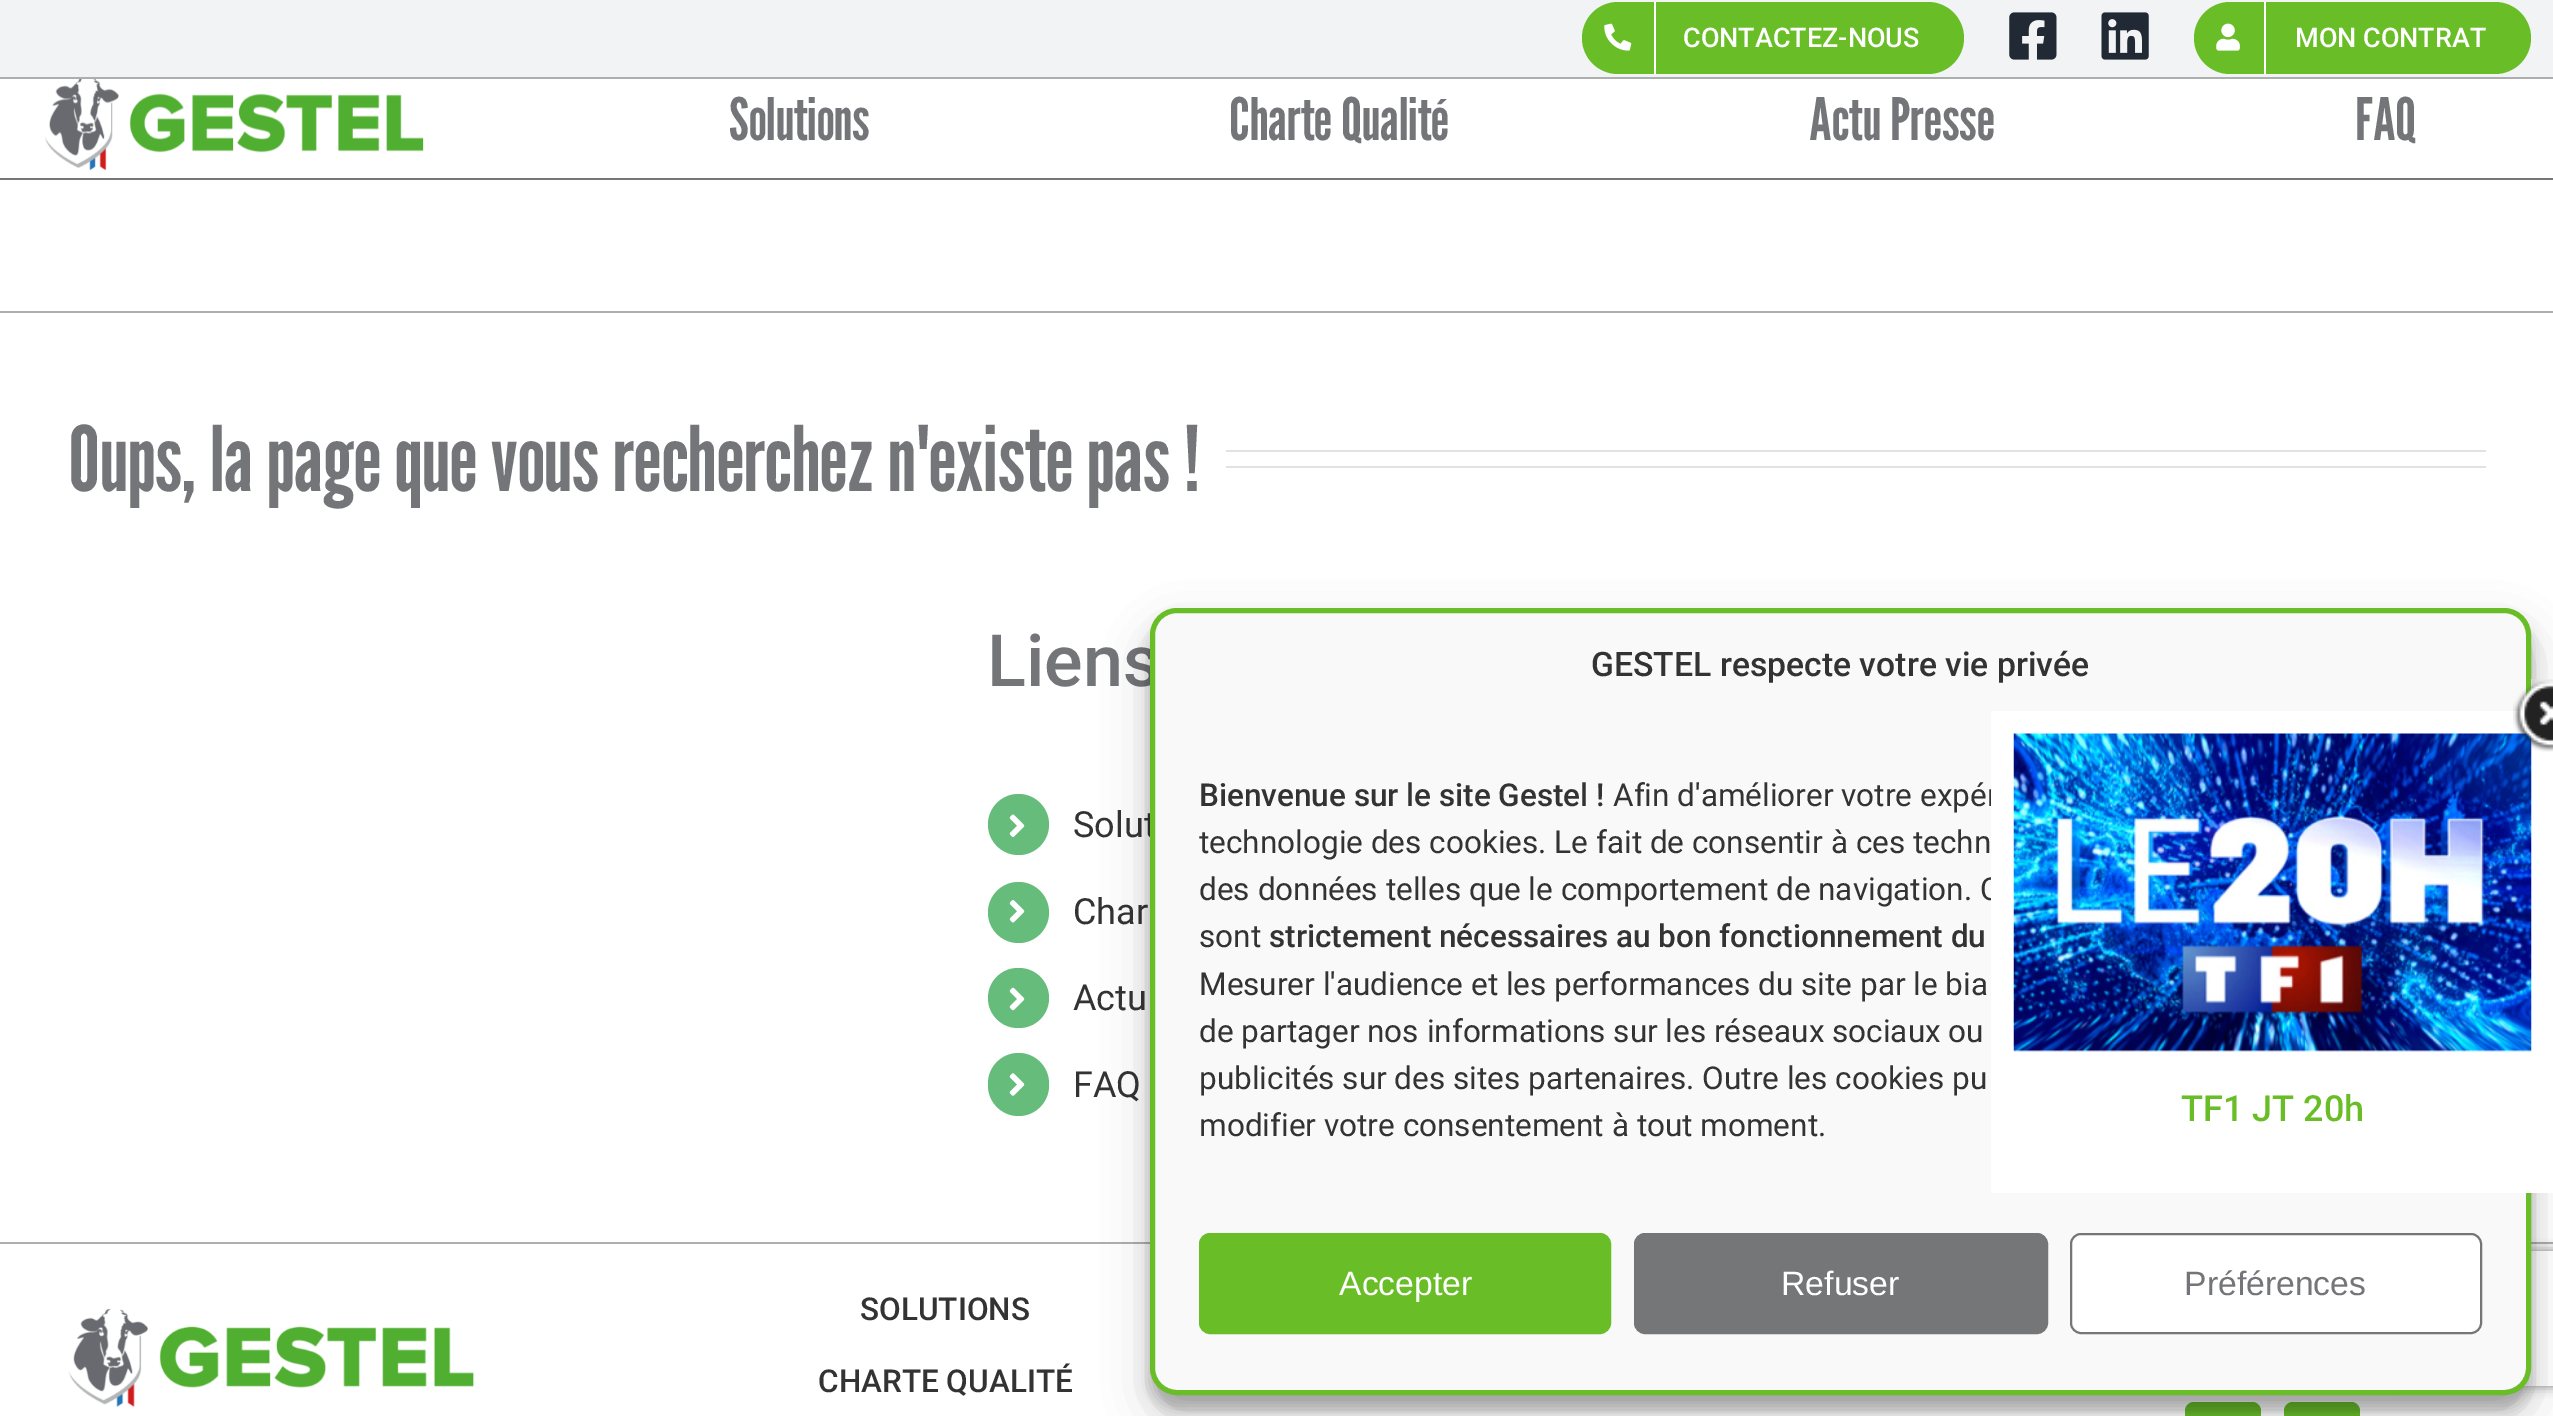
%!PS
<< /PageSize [2553 1416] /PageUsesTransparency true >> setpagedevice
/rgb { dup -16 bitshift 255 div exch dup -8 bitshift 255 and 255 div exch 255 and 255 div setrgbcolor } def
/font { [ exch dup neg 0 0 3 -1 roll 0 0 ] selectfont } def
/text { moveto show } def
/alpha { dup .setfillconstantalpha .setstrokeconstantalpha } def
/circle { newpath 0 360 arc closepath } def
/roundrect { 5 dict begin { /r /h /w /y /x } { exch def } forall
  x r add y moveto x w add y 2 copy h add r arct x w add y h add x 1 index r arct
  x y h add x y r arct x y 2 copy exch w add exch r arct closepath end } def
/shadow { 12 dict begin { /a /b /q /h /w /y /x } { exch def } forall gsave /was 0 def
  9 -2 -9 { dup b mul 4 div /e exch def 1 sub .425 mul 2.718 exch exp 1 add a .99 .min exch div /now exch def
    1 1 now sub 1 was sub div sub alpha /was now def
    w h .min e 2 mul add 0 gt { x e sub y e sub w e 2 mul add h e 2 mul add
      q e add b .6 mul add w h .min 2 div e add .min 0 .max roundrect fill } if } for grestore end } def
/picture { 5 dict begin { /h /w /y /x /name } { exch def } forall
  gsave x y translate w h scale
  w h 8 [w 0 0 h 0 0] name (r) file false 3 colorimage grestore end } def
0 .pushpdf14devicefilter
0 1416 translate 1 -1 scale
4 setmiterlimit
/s1 { /Roboto-Medium 27 font 16#FFFFFF rgb } def
/s2 { /LeagueGothic-Regular 58.5 font 16#747578 rgb } def
/s3 { /LeagueGothic-Regular 90 font 16#747578 rgb } def
/s4 { /Roboto-Medium 72 font 16#747578 rgb } def
/s5 { /Roboto-Regular 36 font 16#333333 rgb } def
/s6 { /Roboto-Medium 31.5 font 16#333333 rgb } def
/s7 { /Roboto-Medium 33.75 font 16#333333 rgb } def
/s8 { /Roboto-Regular 31.5 font 16#333333 rgb } def
/s9 { /LiberationSans-Regular 33.75 font 16#FFFFFF rgb } def
/s10 { /LiberationSans-Regular 33.75 font 16#747578 rgb } def
/s11 { /Roboto-Medium 36 font 16#69BE28 rgb } def
16#FFFFFF rgb
0 0 2553 1416 rectfill
16#F2F3F5 rgb
0 0 2553 77 rectfill
16#ADAFAF rgb
0 77 2553 2 rectfill
16#69BE28 rgb
1582 2 382 72 36 roundrect fill
16#FFFFFF rgb
1654 2 2 72 rectfill
(pic1.raw) 1604 23 28 28 picture
s1
(CONTACTEZ-NOUS) 1683 47 text
(pic2.raw) 2009 12 48 48 picture
(pic3.raw) 2101 12 48 48 picture
16#69BE28 rgb
2194 2 337 72 36 roundrect fill
16#FFFFFF rgb
2264 2 2 72 rectfill
(pic4.raw) 2216 23 24 28 picture
(MON CONTRAT) 2295 47 text
16#747678 rgb
0 178 2553 2 rectfill
(pic5.raw) 44 79 380 92 picture
s2
(Solutions) 729 140 text
(Charte Qualité) 1229 140 text
(Actu Presse) 1809 140 text
(FAQ) 2355 140 text
16#ADAFAF rgb
0 311 2553 2 rectfill
s3
(Oups, la page que vous recherchez n'existe pas !) 68 491 text
16#E2E2E2 rgb
1226 450 1260 2 rectfill
1226 466 1260 2 rectfill
s4
(Liens) 987 686 text
16#65BC7B rgb
1018.5 824.5 30.5 circle fill
(pic6.raw) 1009 814 16 23 picture
s5
(Solut) 1073 837 text
16#65BC7B rgb
1018.5 912.5 30.5 circle fill
(pic7.raw) 1009 900 16 23 picture
s5
(Char) 1073 924 text
16#65BC7B rgb
988 968 61 60 30 roundrect fill
(pic8.raw) 1009 987 16 24 picture
s5
(Actu) 1073 1010 text
16#65BC7B rgb
988 1053 61 63 30.5 roundrect fill
(pic9.raw) 1009 1073 16 23 picture
s5
(FAQ) 1073 1097 text
16#ADAFAF rgb
0 1242 2553 2 rectfill
(pic10.raw) 68 1308 406 99 picture
s6
(SOLUTIONS) 860 1320 text
(CHARTE QUALITÉ) 818 1392 text
16#69BE28 rgb
2185 1402 76 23 9 roundrect fill
2284 1402 76 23 9 roundrect fill
16#000000 rgb
1150 621 1381 788 27 7 0.23 shadow
1150 630 1381 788 27 22.5 0.19 shadow
gsave
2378 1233 moveto 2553 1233 lineto 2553 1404 lineto 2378 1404 lineto closepath 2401 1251 moveto 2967 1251 lineto 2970 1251 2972 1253 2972 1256 curveto 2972 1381 lineto 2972 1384 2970 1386 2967 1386 curveto 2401 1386 lineto 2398 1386 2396 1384 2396 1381 curveto 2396 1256 lineto 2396 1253 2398 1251 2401 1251 curveto closepath eoclip newpath
16#808080 rgb
2396 1251 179 135 5 5.5 1 shadow
grestore
16#F9F9F9 rgb
1152.5 610.5 1376 782 24.5 roundrect gsave fill grestore
16#69BE28 rgb
5 setlinewidth
stroke
s7
(GESTEL respecte votre vie privée) 1591 676 text
s6
(Bienvenue sur le site Gestel !) 1199 806 text
s8
(Afin d'améliorer votre expér) 1613 806 text
(technologie des cookies. Le fait de consentir à ces techn) 1199 853 text
(des données telles que le comportement de navigation. C) 1199 900 text
(sont) 1199 947 text
s6
(strictement nécessaires au bon fonctionnement du) 1269 947 text
s8
(Mesurer l'audience et les performances du site par le bia) 1199 995 text
(de partager nos informations sur les réseaux sociaux ou) 1199 1042 text
(publicités sur des sites partenaires. Outre les cookies pu) 1199 1089 text
(modifier votre consentement à tout moment.) 1199 1136 text
16#69BE28 rgb
1200 1234 410 99 10 roundrect gsave fill grestore
2 setlinewidth
stroke
s9
(Accepter) 1339 1295 text
16#747678 rgb
1635 1234 412 99 10 roundrect gsave fill grestore
stroke
s9
(Refuser) 1781 1295 text
2071 1234 410 99 10 roundrect gsave fill grestore
16#747678 rgb
stroke
s10
(Préférences) 2184 1295 text
16#FFFFFF rgb
1991 711 562 482 rectfill
(pic12.raw) 2013 733 519 319 picture
(pic11.raw) 2513 679 40 73 picture
s11
(TF1 JT 20h) 2181 1121 text
.poppdf14devicefilter showpage
